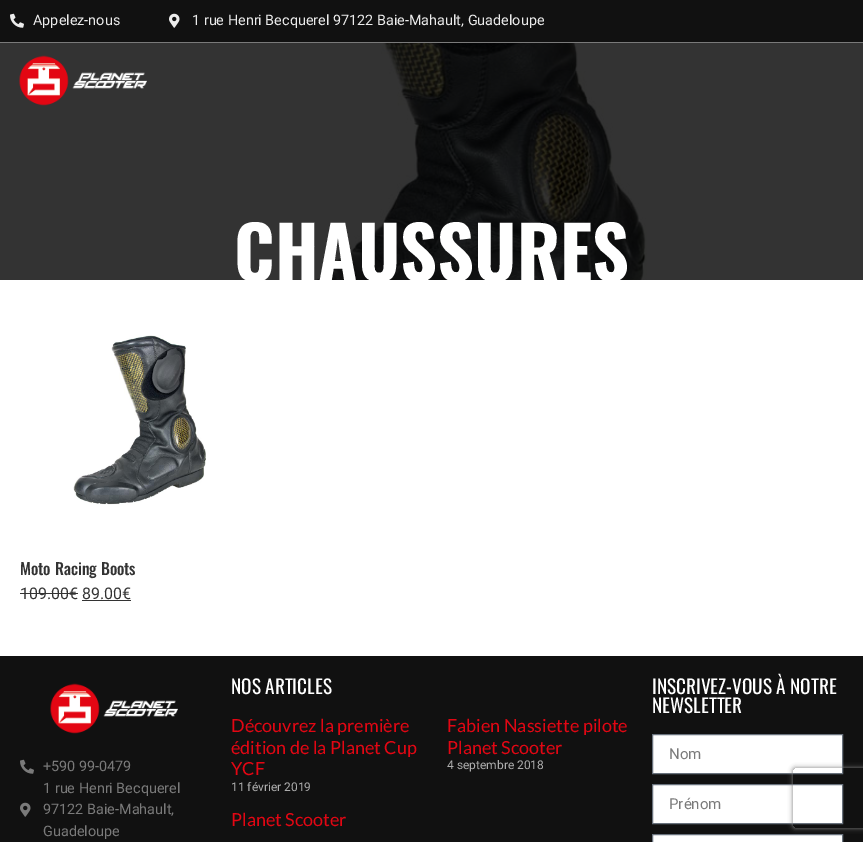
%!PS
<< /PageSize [863 842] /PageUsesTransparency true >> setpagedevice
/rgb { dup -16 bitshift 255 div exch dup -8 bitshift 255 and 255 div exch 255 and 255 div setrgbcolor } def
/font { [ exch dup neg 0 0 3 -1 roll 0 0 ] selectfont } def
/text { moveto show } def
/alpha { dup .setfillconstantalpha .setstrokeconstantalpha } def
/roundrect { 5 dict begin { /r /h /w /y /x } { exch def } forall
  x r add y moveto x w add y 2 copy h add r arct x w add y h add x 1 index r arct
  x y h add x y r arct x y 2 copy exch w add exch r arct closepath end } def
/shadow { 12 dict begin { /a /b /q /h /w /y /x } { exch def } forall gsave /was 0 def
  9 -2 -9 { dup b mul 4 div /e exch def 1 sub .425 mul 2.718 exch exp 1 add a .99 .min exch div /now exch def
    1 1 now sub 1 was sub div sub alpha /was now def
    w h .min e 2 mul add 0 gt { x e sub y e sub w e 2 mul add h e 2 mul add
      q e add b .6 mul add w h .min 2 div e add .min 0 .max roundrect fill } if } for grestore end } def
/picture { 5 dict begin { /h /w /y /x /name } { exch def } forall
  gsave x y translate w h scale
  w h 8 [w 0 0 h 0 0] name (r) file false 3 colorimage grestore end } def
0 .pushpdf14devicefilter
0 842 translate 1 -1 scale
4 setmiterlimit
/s1 { /Roboto-Regular 14.4 font 16#ECECEC rgb } def
/s2 { /Oswald-Bold 72 font 16#FFFFFF rgb } def
/s3 { /Oswald-Medium 16 font 16#333333 rgb } def
/s4 { /Roboto-Regular 16 font 16#333333 rgb } def
/s5 { /Roboto-Regular 14.4 font 16#7A7A7A rgb } def
/s6 { /Oswald-Regular 19.25 font 16#FFFFFF rgb } def
/s7 { /Lato-Regular 18 font 16#E30613 rgb } def
/s8 { /Roboto-Regular 12 font 16#ADADAD rgb } def
/s9 { /Roboto-Regular 15 font 16#7A7A7A rgb } def
16#FFFFFF rgb
0 0 863 842 rectfill
16#333333 rgb
0 43 863 237 rectfill
16#111111 rgb
0 0 863 42 rectfill
16#7A7A7A rgb
0 42 863 1 rectfill
(pic1.raw) 10 13 14 15 picture
s1
(Appelez-nous) 33 25 text
(pic2.raw) 169 13 11 15 picture
(1 rue Henri Becquerel 97122 Baie-Mahault, Guadeloupe) 192 25 text
(pic3.raw) 19 55 128 51 picture
(pic4.raw) 307 43 340 237 picture
s2
(CHAUSSURES) 234 281 text
(pic5.raw) 73 335 133 170 picture
s3
(Moto Racing Boots) 20 575 text
s4
(109.00€ 89.00€) 20 599 text
20 593 58 1 rectfill
82 600 49 1 rectfill
16#111111 rgb
0 656 863 186 rectfill
(pic6.raw) 50 683 128 51 picture
(pic7.raw) 20 759 14 15 picture
s5
(+590 99-0479) 43 771 text
(pic8.raw) 20 802 11 15 picture
(1 rue Henri Becquerel) 43 793 text
(97122 Baie-Mahault,) 43 814 text
(Guadeloupe) 43 836 text
s6
(NOS ARTICLES) 231 694 text
s7
(Découvrez la première) 231 732 text
(édition de la Planet Cup) 231 754 text
(YCF) 231 775 text
s8
(11 février 2019) 231 791 text
s7
(Fabien Nassiette pilote) 447 732 text
(Planet Scooter) 447 754 text
s8
(4 septembre 2018) 447 769 text
s7
(Planet Scooter) 231 826 text
s6
(INSCRIVEZ-VOUS À NOTRE) 652 694 text
(NEWSLETTER) 652 713 text
652.5 734.5 moveto 842.5 734.5 lineto 842.5 773.5 lineto 652.5 773.5 lineto closepath gsave fill grestore
16#69727D rgb
stroke
s9
(Nom) 669 759 text
16#FFFFFF rgb
652.5 784.5 moveto 842.5 784.5 lineto 842.5 823.5 lineto 652.5 823.5 lineto closepath gsave fill grestore
16#69727D rgb
stroke
s9
(Prénom) 669 809 text
16#FFFFFF rgb
652.5 834.5 moveto 842.5 834.5 lineto 842.5 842.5 lineto 652.5 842.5 lineto closepath gsave fill grestore
16#69727D rgb
stroke
gsave
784 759 moveto 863 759 lineto 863 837 lineto 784 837 lineto closepath 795 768 moveto 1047 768 lineto 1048 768 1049 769 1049 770 curveto 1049 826 lineto 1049 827 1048 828 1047 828 curveto 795 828 lineto 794 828 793 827 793 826 curveto 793 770 lineto 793 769 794 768 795 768 curveto closepath eoclip newpath
16#808080 rgb
793 768 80 60 2 2.5 1 shadow
grestore
.poppdf14devicefilter showpage
